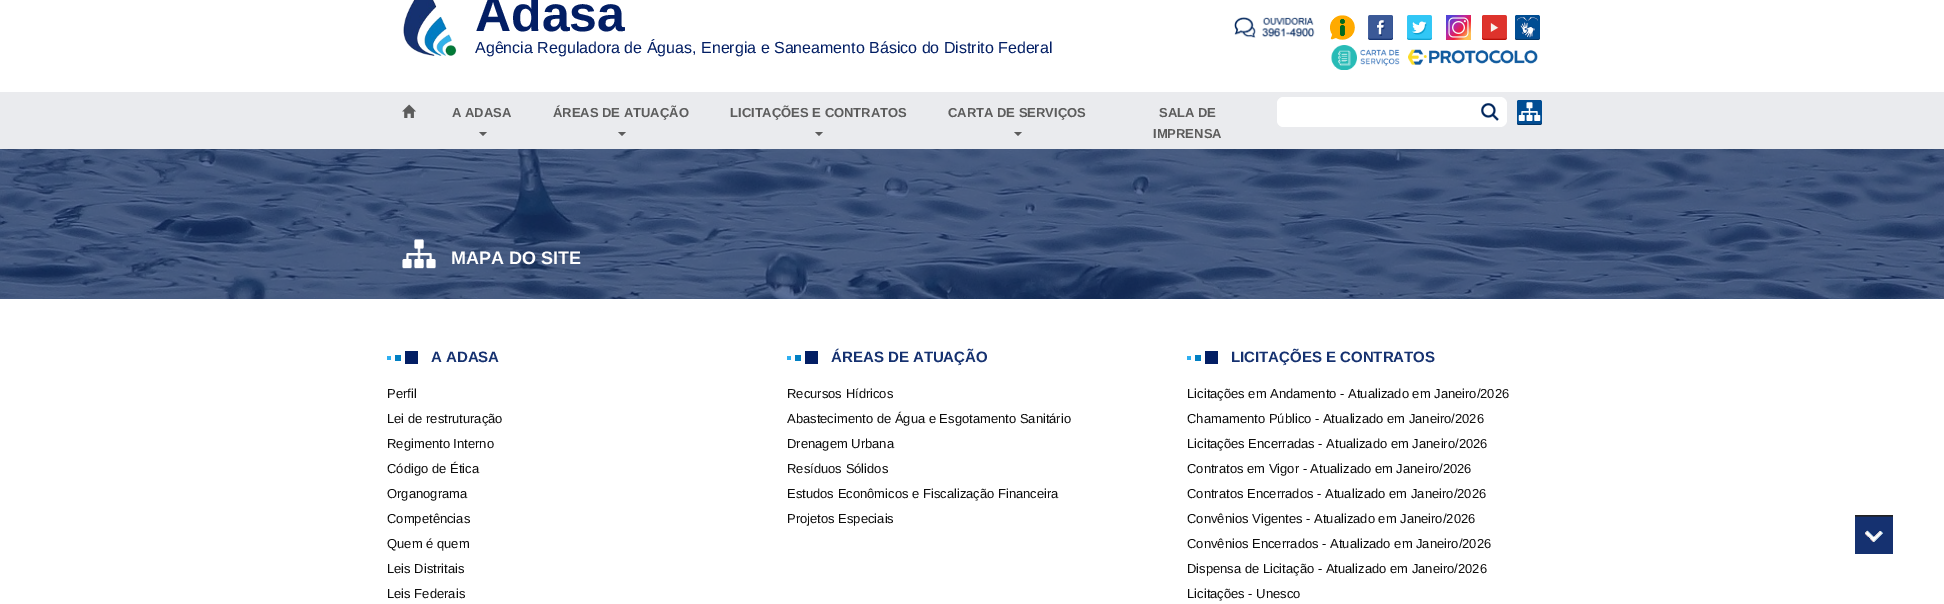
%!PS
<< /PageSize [1944 604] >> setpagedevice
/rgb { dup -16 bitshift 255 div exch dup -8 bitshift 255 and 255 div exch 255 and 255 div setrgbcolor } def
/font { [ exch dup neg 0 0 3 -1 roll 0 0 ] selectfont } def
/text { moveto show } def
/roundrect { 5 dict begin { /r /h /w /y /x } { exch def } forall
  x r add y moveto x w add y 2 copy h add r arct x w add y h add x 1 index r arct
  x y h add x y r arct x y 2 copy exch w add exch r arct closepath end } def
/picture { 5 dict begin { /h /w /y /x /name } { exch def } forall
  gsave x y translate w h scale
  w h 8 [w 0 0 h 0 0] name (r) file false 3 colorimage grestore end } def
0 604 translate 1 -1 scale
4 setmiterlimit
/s1 { /LiberationSans-Bold 50 font 16#021E64 rgb } def
/s2 { /LiberationSans-Regular 16 font 16#021E64 rgb } def
/s3 { /LiberationSans-Bold 13 font 16#5C5C5C rgb } def
/s4 { /LiberationSans-Bold 18 font 16#FFFFFF rgb } def
/s5 { /LiberationSans-Bold 15 font 16#153170 rgb } def
/s6 { /LiberationSans-Regular 13 font 16#0D0D0D rgb } def
16#FFFFFF rgb
0 0 1944 604 rectfill
(pic1.raw) 403 0 54 56 picture
s1
(Adasa) 475 31 text
s2
(Agência Reguladora de Águas, Energia e Saneamento Básico do Distrito Federal) 475 53 text
(pic2.raw) 1234 17 81 21 picture
(pic3.raw) 1330 15 25 25 picture
(pic4.raw) 1368 15 25 25 picture
(pic5.raw) 1407 15 25 25 picture
(pic6.raw) 1446 15 25 25 picture
(pic7.raw) 1482 15 25 25 picture
(pic8.raw) 1515 15 25 25 picture
(pic9.raw) 1331 45 69 25 picture
(pic10.raw) 1408 49 130 16 picture
16#EAEBEE rgb
0 92 1944 57 rectfill
(pic11.raw) 402 104 14 14 picture
s3
(A ADASA) 452 117 text
479 132 moveto 487 132 lineto 483 136 lineto closepath fill
(ÁREAS DE ATUAÇÃO) 553 117 text
618 132 moveto 626 132 lineto 622 136 lineto closepath fill
(LICITAÇÕES E CONTRATOS) 730 117 text
815 132 moveto 823 132 lineto 819 136 lineto closepath fill
(CARTA DE SERVIÇOS) 948 117 text
1014 132 moveto 1022 132 lineto 1018 136 lineto closepath fill
(SALA DE) 1159 117 text
(IMPRENSA) 1153 138 text
16#FFFFFF rgb
1277 97 230 30 7 roundrect fill
1284 97 moveto 1473 97 lineto 1473 127 lineto 1284 127 lineto 1280 127 1277 124 1277 120 curveto 1277 104 lineto 1277 100 1280 97 1284 97 curveto closepath fill
(pic12.raw) 1481 103 18 18 picture
(pic13.raw) 1517 100 25 25 picture
(pic14.raw) 0 149 1944 150 picture
(pic15.raw) 402 239 34 30 picture
s4
(MAPA DO SITE) 451 264 text
(pic16.raw) 387 351 31 13 picture
s5
(A ADASA) 431 362 text
s6
(Perfil) 387 398 text
(Lei de restruturação) 387 423 text
(Regimento Interno) 387 448 text
(Código de Ética) 387 473 text
(Organograma) 387 498 text
(Competências) 387 523 text
(Quem é quem) 387 548 text
(Leis Distritais) 387 573 text
(Leis Federais) 387 598 text
(pic16.raw) 787 351 31 13 picture
s5
(ÁREAS DE ATUAÇÃO) 831 362 text
s6
(Recursos Hídricos) 787 398 text
(Abastecimento de Água e Esgotamento Sanitário) 787 423 text
(Drenagem Urbana) 787 448 text
(Resíduos Sólidos) 787 473 text
(Estudos Econômicos e Fiscalização Financeira) 787 498 text
(Projetos Especiais) 787 523 text
(pic16.raw) 1187 351 31 13 picture
s5
(LICITAÇÕES E CONTRATOS) 1231 362 text
s6
(Licitações em Andamento - Atualizado em Janeiro/2026) 1187 398 text
(Chamamento Público - Atualizado em Janeiro/2026) 1187 423 text
(Licitações Encerradas - Atualizado em Janeiro/2026) 1187 448 text
(Contratos em Vigor - Atualizado em Janeiro/2026) 1187 473 text
(Contratos Encerrados - Atualizado em Janeiro/2026) 1187 498 text
(Convênios Vigentes - Atualizado em Janeiro/2026) 1187 523 text
(Convênios Encerrados - Atualizado em Janeiro/2026) 1187 548 text
(Dispensa de Licitação - Atualizado em Janeiro/2026) 1187 573 text
(Licitações - Unesco) 1187 598 text
(pic17.raw) 1855 515 38 39 picture
showpage
